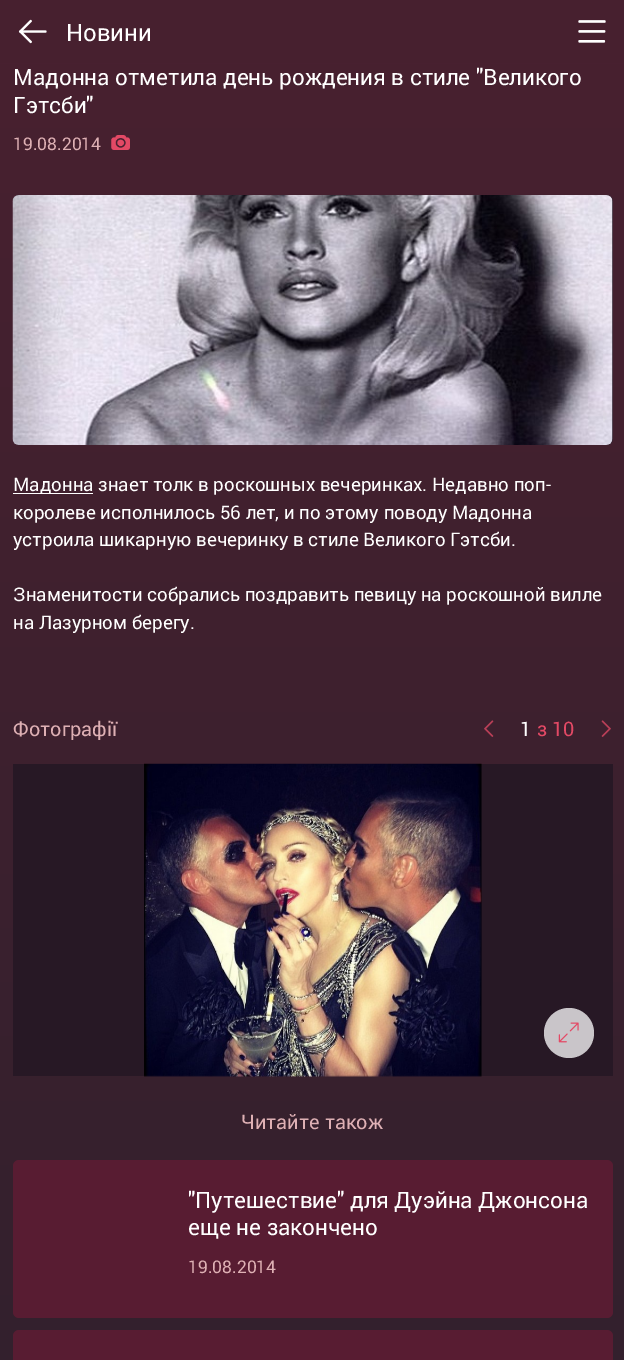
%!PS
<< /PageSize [624 1360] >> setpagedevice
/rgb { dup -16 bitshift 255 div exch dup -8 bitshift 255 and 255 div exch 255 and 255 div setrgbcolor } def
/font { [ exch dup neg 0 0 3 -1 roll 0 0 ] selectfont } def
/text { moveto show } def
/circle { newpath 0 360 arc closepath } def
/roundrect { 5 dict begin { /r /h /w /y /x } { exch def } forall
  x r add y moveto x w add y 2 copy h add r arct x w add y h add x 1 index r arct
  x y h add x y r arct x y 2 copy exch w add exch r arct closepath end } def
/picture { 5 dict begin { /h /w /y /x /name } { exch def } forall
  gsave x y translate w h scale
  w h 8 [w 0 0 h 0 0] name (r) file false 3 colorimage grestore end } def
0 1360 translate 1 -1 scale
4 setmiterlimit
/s1 { /Roboto-Regular 24 font 16#FFFFFF rgb } def
/s2 { /Roboto-Regular 22.5 font 16#FFFFFF rgb } def
/s3 { /Roboto-Regular 17.5 font 16#DEB0B4 rgb } def
/s4 { /Roboto-Regular 18.75 font 16#FFFFFF rgb } def
/s5 { /Roboto-Regular 20 font 16#DEB0B4 rgb } def
/s6 { /Roboto-Regular 20 font 16#FFFFFF rgb } def
/s7 { /Roboto-Regular 20 font 16#E34965 rgb } def
16#FFFFFF rgb
0 0 624 1360 rectfill
gsave 0 63 moveto 624 63 lineto 624 1360 lineto 0 1360 lineto closepath clip newpath
<< /ShadingType 2 /ColorSpace /DeviceRGB /Coords [313 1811 313 0] /Extend [true true] /Function << /FunctionType 2 /Domain [0 1] /C0 [0.173 0.125 0.173] /C1 [0.286 0.125 0.188] /N 1 >> >> shfill grestore
16#47202F rgb
0 0 624 63 rectfill
(pic1.raw) 18 19 29 25 picture
s1
(Новини) 66 41 text
(pic2.raw) 578 20 28 23 picture
s2
(Мадонна отметила день рождения в стиле "Великого) 13 85 text
(Гэтсби") 13 113 text
s3
(19.08.2014) 13 150 text
(pic3.raw) 111 135 19 15 picture
16#271825 rgb
13 195 600 250 6 roundrect fill
(pic4.raw) 12 195 601 250 picture
16#FFFFFF rgb
13 493 80 1 rectfill
s4
(Мадонна знает толк в роскошных вечеринках. Недавно поп-) 13 491 text
(королеве исполнилось 56 лет, и по этому поводу Мадонна) 13 519 text
(устроила шикарную вечеринку в стиле Великого Гэтсби.) 13 546 text
(Знаменитости собрались поздравить певицу на роскошной вилле) 13 601 text
(на Лазурном берегу.) 13 629 text
s5
(Фотографії) 13 736 text
(pic5.raw) 484 720 10 17 picture
s6
(1) 520 736 text
s7
(з 10) 537 736 text
(pic6.raw) 601 720 10 17 picture
16#271825 rgb
13 764 600 312 rectfill
(pic7.raw) 144 763 338 314 picture
16#C9C5C9 rgb
569 1033 25 circle fill
(pic8.raw) 558 1022 21 21 picture
s5
(Читайте також) 241 1129 text
16#581C32 rgb
13 1160 600 158 6 roundrect fill
s2
("Путешествие" для Дуэйна Джонсона) 188 1208 text
(еще не закончено) 188 1235 text
s3
(19.08.2014) 188 1273 text
16#581C32 rgb
13 1330 600 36 6 roundrect fill
showpage
